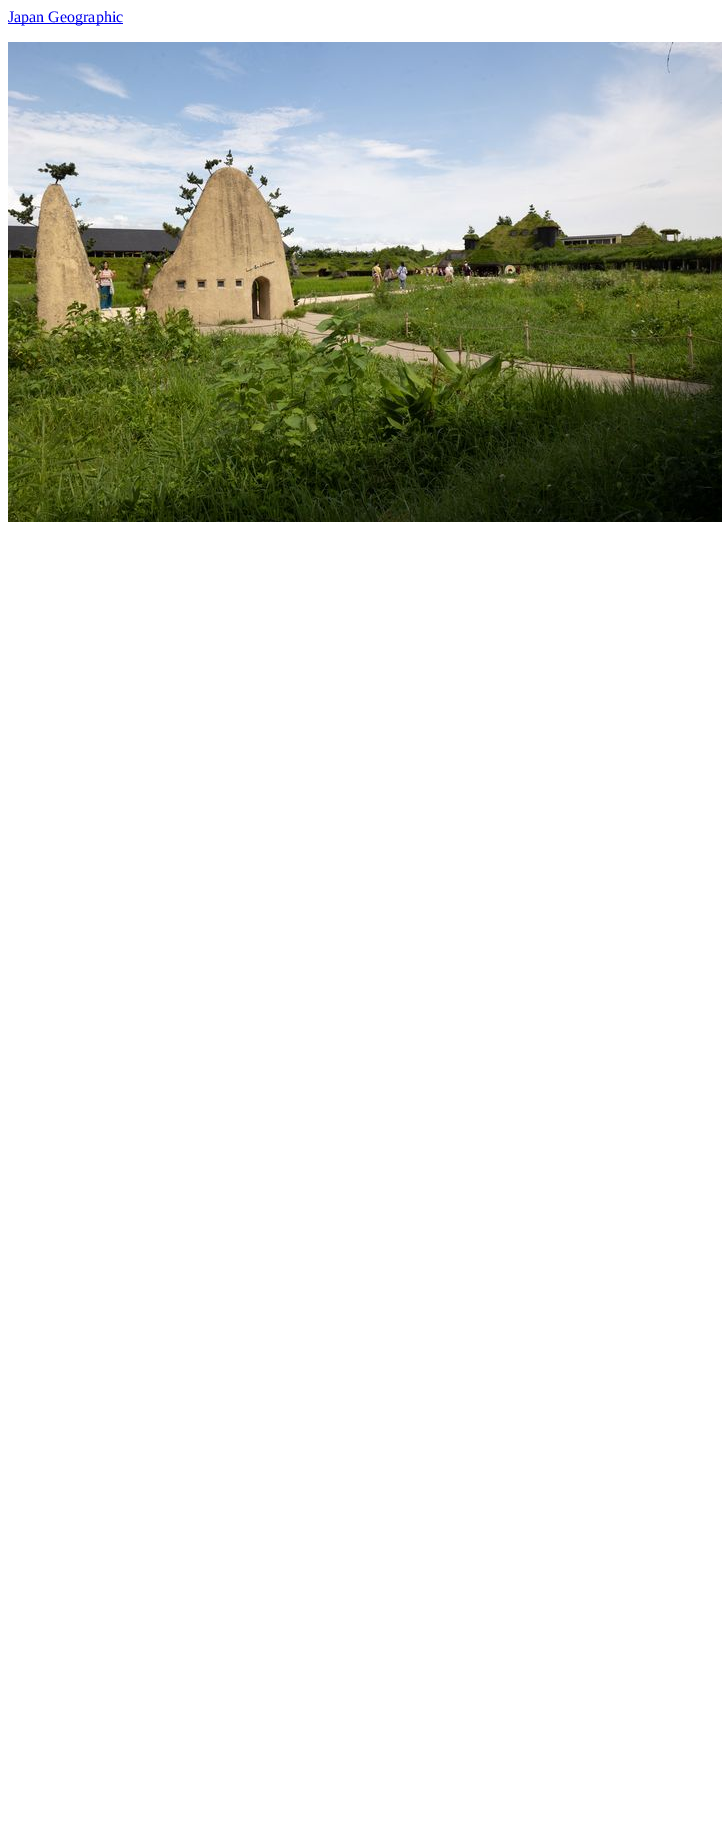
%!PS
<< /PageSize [722 1829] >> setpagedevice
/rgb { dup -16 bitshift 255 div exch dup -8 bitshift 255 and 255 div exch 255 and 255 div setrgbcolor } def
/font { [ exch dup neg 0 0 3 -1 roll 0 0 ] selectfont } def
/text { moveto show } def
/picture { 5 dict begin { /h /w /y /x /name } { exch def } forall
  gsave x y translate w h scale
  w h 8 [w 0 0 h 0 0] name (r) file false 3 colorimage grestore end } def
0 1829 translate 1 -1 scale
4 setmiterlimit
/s1 { /LiberationSerif-Regular 16 font 16#0000EE rgb } def
16#FFFFFF rgb
0 0 722 1829 rectfill
16#0000EE rgb
8 23 115 1 rectfill
s1
(Japan Geographic) 8 22 text
(pic1.raw) 8 42 714 480 picture
showpage
